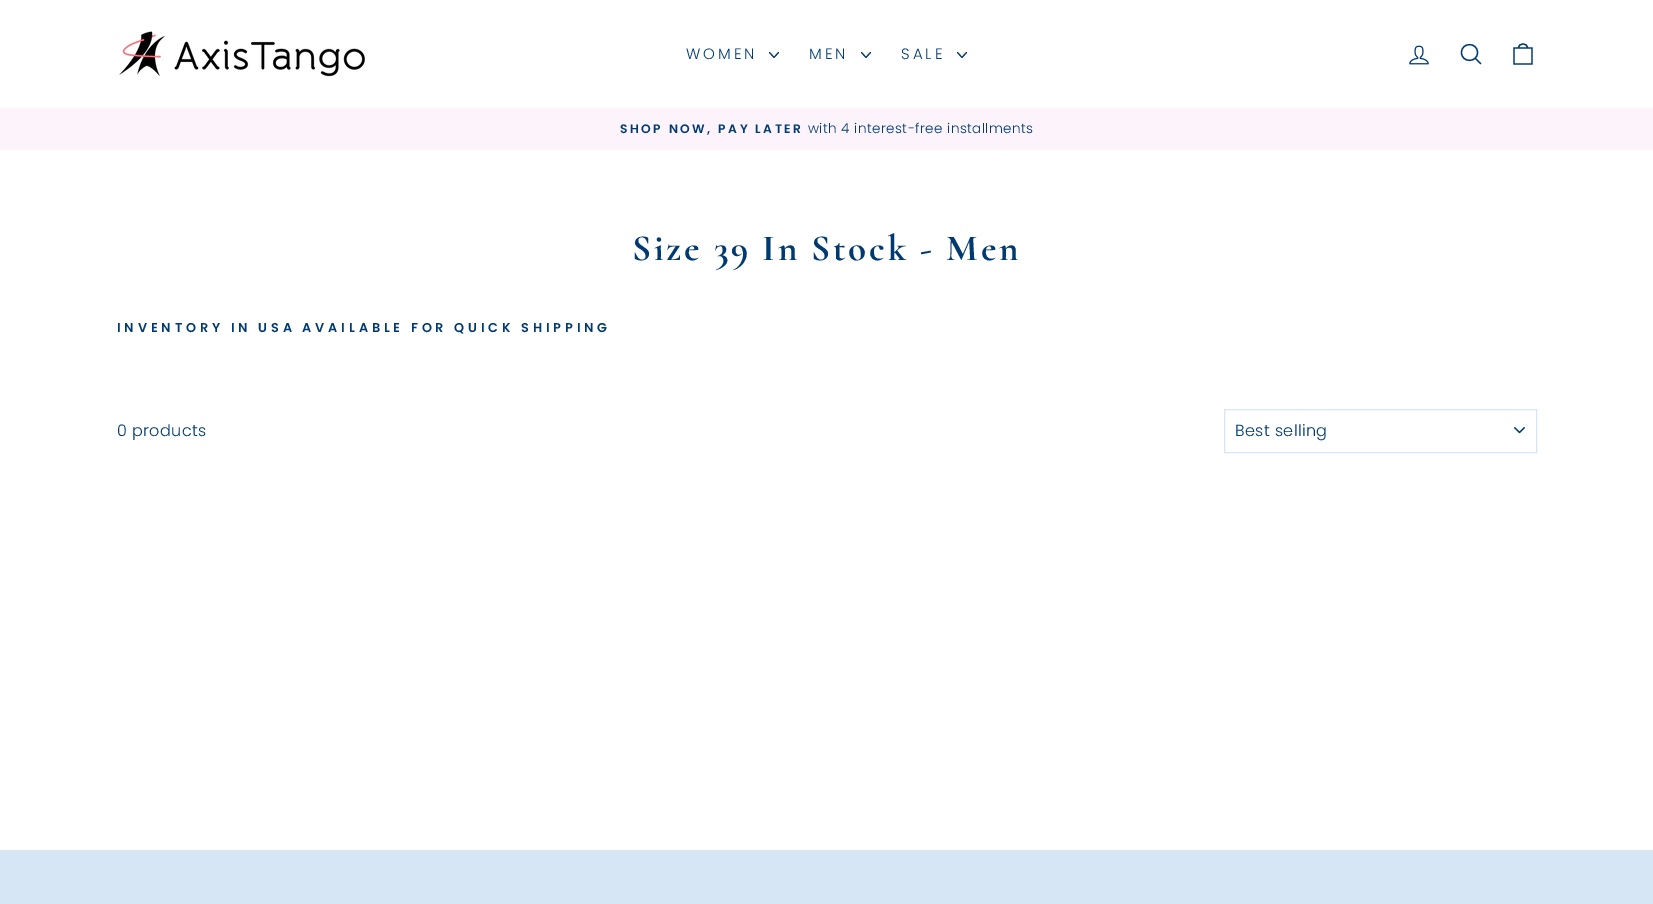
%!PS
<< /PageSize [1653 904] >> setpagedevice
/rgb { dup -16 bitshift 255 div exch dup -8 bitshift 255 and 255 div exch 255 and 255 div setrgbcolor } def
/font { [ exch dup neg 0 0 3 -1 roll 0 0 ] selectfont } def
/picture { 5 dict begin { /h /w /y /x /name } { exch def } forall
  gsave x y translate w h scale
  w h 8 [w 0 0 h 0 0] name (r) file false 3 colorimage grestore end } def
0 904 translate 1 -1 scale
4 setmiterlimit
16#FFFFFF rgb
0 0 1653 904 rectfill
(pic1.raw) 119 31 246 46 picture
/Poppins-Light 15 font
16#003A70 rgb
686 59 moveto 3 0 (WOMEN) ashow
1.1 setlinewidth
1 setlinecap
1 setlinejoin
769.5 52.5 moveto 774 57.5 lineto 778.5 52.5 lineto stroke
809 59 moveto 3 0 (MEN) ashow
861.5 52.5 moveto 866 57.5 lineto 870.5 52.5 lineto stroke
901 59 moveto 3 0 (SALE) ashow
957.5 52.5 moveto 962 57.5 lineto 966.5 52.5 lineto stroke
(pic2.raw) 1409 45 20 20 picture
1.3 setlinewidth
1477.5 52.5 moveto 1477.5 63 1461.5 63 1461.5 52.5 curveto 1461.5 42 1477.5 42 1477.5 52.5 curveto closepath 1480.5 63.5 moveto 1475.5 58.5 lineto stroke
1514 48 moveto 1532 48 lineto 1532 64 lineto 1514 64 lineto closepath 1518.5 48 moveto 1518.5 42.5 1527.5 42.5 1527.5 48 curveto stroke
16#FDF4FB rgb
0 108 1653 42 rectfill
/Poppins-SemiBold 12.25 font
16#003A70 rgb
620 133 moveto 2.5 0 (SHOP NOW, PAY LATER) ashow
/Poppins-Light 13.6 font
808 133 moveto 0.4 0 (with 4 interest-free installments) ashow
/Cormorant-Bold 37 font
632 260 moveto 2.75 0 (Size 39 In Stock - Men) ashow
/Poppins-SemiBold 12.8 font
117 332 moveto 3.85 0 (INVENTORY IN USA AVAILABLE FOR QUICK SHIPPING) ashow
/Poppins-Light 16 font
117 436 moveto 0.4 0 (0 products) ashow
(pic3.raw) 1514 427 11 7 picture
16#D7E6F5 rgb
1 setlinewidth
0 setlinecap
0 setlinejoin
1224.5 409.5 312 43 rectstroke
16#003A70 rgb
1235 436 moveto 0.4 0 (Best selling) ashow
16#D7E6F5 rgb
0 850 1653 54 rectfill
showpage
